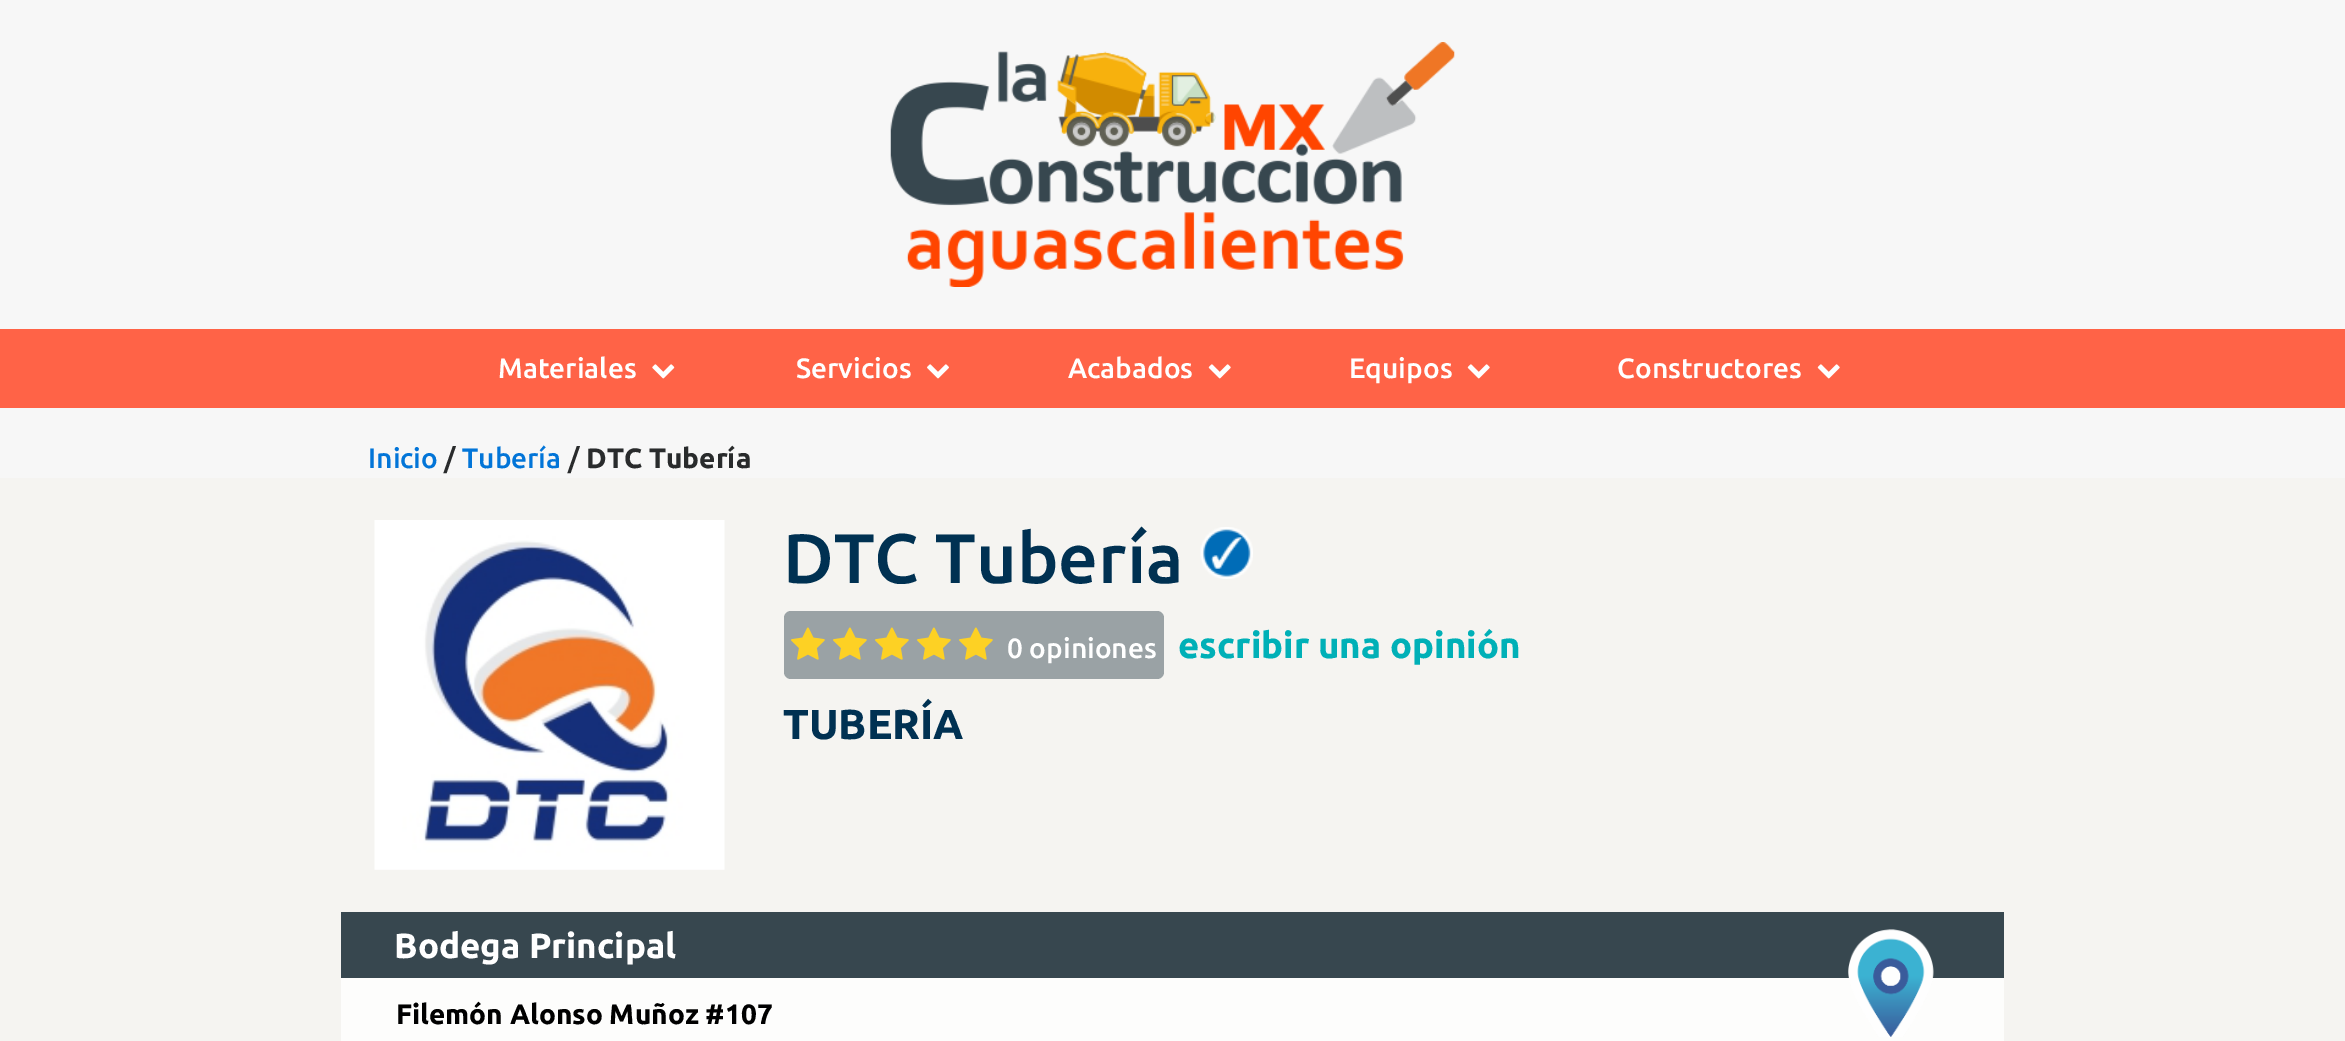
%!PS
<< /PageSize [2345 1041] >> setpagedevice
/rgb { dup -16 bitshift 255 div exch dup -8 bitshift 255 and 255 div exch 255 and 255 div setrgbcolor } def
/font { [ exch dup neg 0 0 3 -1 roll 0 0 ] selectfont } def
/text { moveto show } def
/roundrect { 5 dict begin { /r /h /w /y /x } { exch def } forall
  x r add y moveto x w add y 2 copy h add r arct x w add y h add x 1 index r arct
  x y h add x y r arct x y 2 copy exch w add exch r arct closepath end } def
/picture { 5 dict begin { /h /w /y /x /name } { exch def } forall
  gsave x y translate w h scale
  w h 8 [w 0 0 h 0 0] name (r) file false 3 colorimage grestore end } def
0 1041 translate 1 -1 scale
4 setmiterlimit
/s1 { /Ubuntu-Medium 28 font 16#FFFFFF rgb } def
/s2 { /Ubuntu-Medium 28 font 16#0275D8 rgb } def
/s3 { /Ubuntu-Medium 28 font 16#292B2C rgb } def
/s4 { /Ubuntu-Bold 28 font 16#292B2C rgb } def
/s5 { /Ubuntu-Medium 70 font 16#003152 rgb } def
/s6 { /Ubuntu-Bold 36.5 font 16#00B0B7 rgb } def
/s7 { /Ubuntu-Bold 42 font 16#003152 rgb } def
/s8 { /Ubuntu-Bold 35 font 16#FFFFFF rgb } def
/s9 { /Ubuntu-Bold 28 font 16#000000 rgb } def
16#F7F7F7 rgb
0 0 2345 1041 rectfill
16#FF6347 rgb
0 329 2345 79 rectfill
(pic1.raw) 890 42 565 245 picture
s1
(Materiales) 498 378 text
(pic2.raw) 652 364 23 15 picture
(Servicios) 796 378 text
(pic3.raw) 927 364 22 15 picture
(Acabados) 1068 378 text
(pic4.raw) 1208 364 23 15 picture
(Equipos) 1349 378 text
(pic4.raw) 1467 364 23 15 picture
(Constructores) 1617 378 text
(pic4.raw) 1817 364 23 15 picture
s2
(Inicio) 368 468 text
s3
(/) 444 468 text
s2
(Tubería) 462 468 text
s3
(/) 568 468 text
s4
(DTC Tubería) 586 468 text
16#F5F4F1 rgb
0 478 2345 563 rectfill
(pic5.raw) 374 520 351 350 picture
s5
(DTC Tubería) 783 583 text
(pic6.raw) 1200 527 53 52 picture
16#9AA2A5 rgb
784 611 380 68 7 roundrect fill
(pic7.raw) 791 627 34 33 picture
(pic7.raw) 833 627 34 33 picture
(pic7.raw) 875 627 34 33 picture
(pic7.raw) 917 627 34 33 picture
(pic7.raw) 959 627 34 33 picture
s1
(0 opiniones) 1007 658 text
s6
(escribir una opinión) 1178 658 text
s7
(TUBERÍA) 783 739 text
16#37474F rgb
341 912 1663 66 rectfill
s8
(Bodega Principal) 394 958 text
16#FDFDFC rgb
341 978 1663 63 rectfill
(pic8.raw) 1848 929 86 108 picture
s9
(Filemón Alonso Muñoz #107) 396 1024 text
showpage
